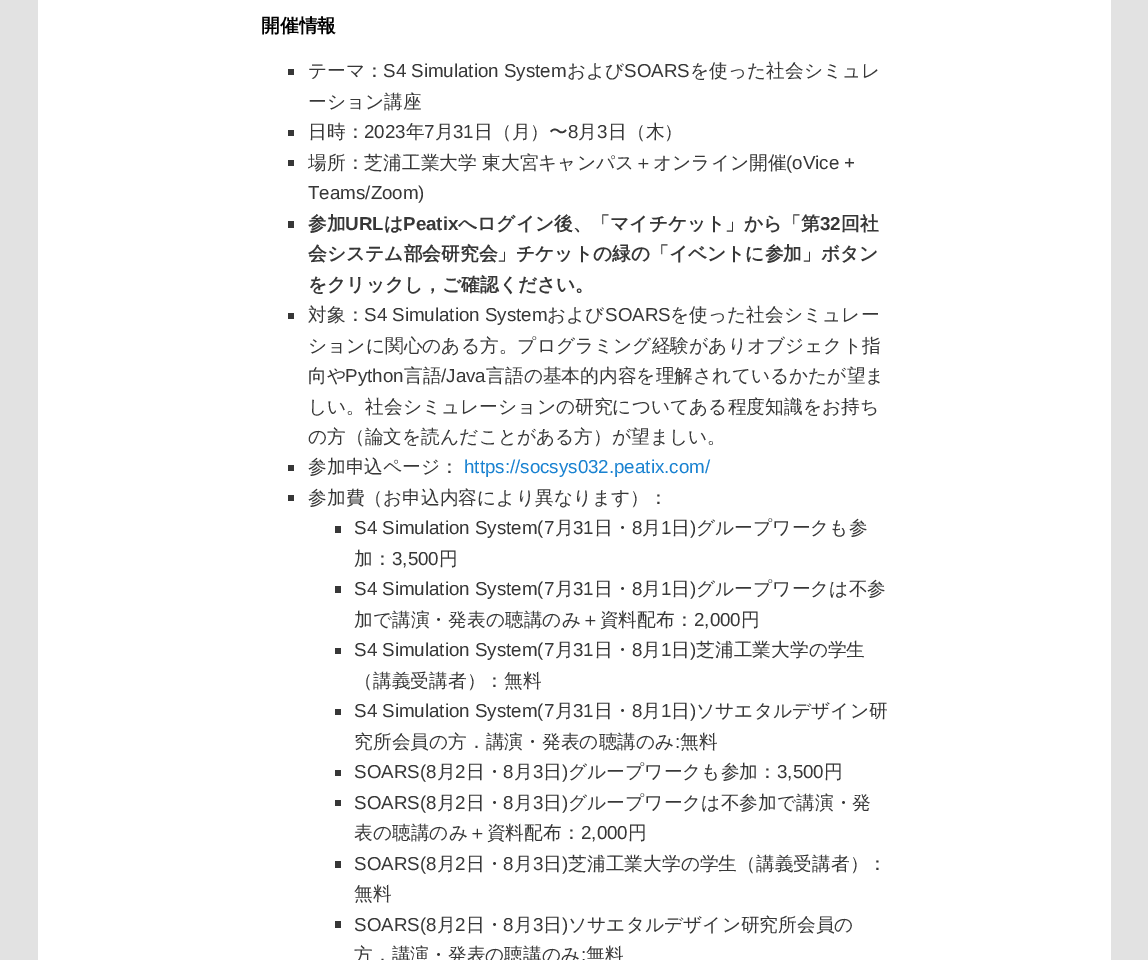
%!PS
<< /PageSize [1148 960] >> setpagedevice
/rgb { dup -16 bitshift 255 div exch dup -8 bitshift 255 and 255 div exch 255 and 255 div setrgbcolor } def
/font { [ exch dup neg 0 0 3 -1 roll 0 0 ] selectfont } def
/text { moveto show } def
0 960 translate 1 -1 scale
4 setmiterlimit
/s1 { /WenQuanYiZenHei-Bold 18.75 font 16#000000 rgb } def
/s2 { /WenQuanYiZenHei-Medium 18.75 font 16#373737 rgb } def
/s3 { /LiberationSans-Regular 18.75 font 16#373737 rgb } def
/s4 { /WenQuanYiZenHei-Bold 18.75 font 16#373737 rgb } def
/s5 { /LiberationSans-Bold 18.75 font 16#373737 rgb } def
/s6 { /LiberationSans-Regular 18.75 font 16#1982D1 rgb } def
16#E2E2E2 rgb
0 0 1148 960 rectfill
16#FFFFFF rgb
38 0 1073 960 rectfill
s1
(開催情報) 261 32 text
16#373737 rgb
288 69 6 6 rectfill
s2
(テーマ：) 308 77 text
s3
(S4 Simulation System) 383 77 text
s2
(および) 567 77 text
s3
(SOARS) 624 77 text
s2
(を使った社会シミュレ) 690 77 text
(ーション講座) 308 108 text
288 130 6 6 rectfill
(日時：) 308 138 text
s3
(2023) 364 138 text
s2
(年) 406 138 text
s3
(7) 424 138 text
s2
(月) 435 138 text
s3
(31) 453 138 text
s2
(日（月）〜) 474 138 text
s3
(8) 568 138 text
s2
(月) 578 138 text
s3
(3) 597 138 text
s2
(日（木）) 608 138 text
288 160 6 6 rectfill
(場所：芝浦工業大学) 308 169 text
(東大宮キャンパス＋オンライン開催) 482 169 text
s3
(\(oVice +) 786 169 text
(Teams/Zoom\)) 308 199 text
288 221 6 7 rectfill
s4
(参加) 308 230 text
s5
(URL) 345 230 text
s4
(は) 384 230 text
s5
(Peatix) 403 230 text
s4
(へログイン後、「マイチケット」から「第) 458 230 text
s5
(32) 820 230 text
s4
(回社) 841 230 text
(会システム部会研究会」チケットの緑の「イベントに参加」ボタン) 308 260 text
(をクリックし，ご確認ください。) 308 291 text
288 313 6 6 rectfill
s2
(対象：) 308 321 text
s3
(S4 Simulation System) 364 321 text
s2
(および) 547 321 text
s3
(SOARS) 605 321 text
s2
(を使った社会シミュレー) 670 321 text
(ションに関心のある方。プログラミング経験がありオブジェクト指) 308 352 text
(向や) 308 382 text
s3
(Python) 345 382 text
s2
(言語) 404 382 text
s3
(/Java) 441 382 text
s2
(言語の基本的内容を理解されているかたが望ま) 486 382 text
(しい。社会シミュレーションの研究についてある程度知識をお持ち) 308 413 text
(の方（論文を読んだことがある方）が望ましい。) 308 443 text
288 465 6 6 rectfill
(参加申込ページ：) 308 473 text
s6
(https://socsys032.peatix.com/) 464 473 text
16#373737 rgb
288 495 6 6 rectfill
s2
(参加費（お申込内容により異なります）：) 308 504 text
335 526 6 7 rectfill
s3
(S4 Simulation System\(7) 354 534 text
s2
(月) 555 534 text
s3
(31) 573 534 text
s2
(日・) 594 534 text
s3
(8) 632 534 text
s2
(月) 642 534 text
s3
(1) 661 534 text
s2
(日) 671 534 text
s3
(\)) 690 534 text
s2
(グループワークも参) 696 534 text
(加：) 354 565 text
s3
(3,500) 392 565 text
s2
(円) 439 565 text
335 586 6 7 rectfill
s3
(S4 Simulation System\(7) 354 595 text
s2
(月) 555 595 text
s3
(31) 573 595 text
s2
(日・) 594 595 text
s3
(8) 632 595 text
s2
(月) 642 595 text
s3
(1) 661 595 text
s2
(日) 671 595 text
s3
(\)) 690 595 text
s2
(グループワークは不参) 696 595 text
(加で講演・発表の聴講のみ＋資料配布：) 354 626 text
s3
(2,000) 694 626 text
s2
(円) 741 626 text
335 648 6 6 rectfill
s3
(S4 Simulation System\(7) 354 656 text
s2
(月) 555 656 text
s3
(31) 573 656 text
s2
(日・) 594 656 text
s3
(8) 632 656 text
s2
(月) 642 656 text
s3
(1) 661 656 text
s2
(日) 671 656 text
s3
(\)) 690 656 text
s2
(芝浦工業大学の学生) 696 656 text
(（講義受講者）：無料) 354 687 text
335 709 6 6 rectfill
s3
(S4 Simulation System\(7) 354 717 text
s2
(月) 555 717 text
s3
(31) 573 717 text
s2
(日・) 594 717 text
s3
(8) 632 717 text
s2
(月) 642 717 text
s3
(1) 661 717 text
s2
(日) 671 717 text
s3
(\)) 690 717 text
s2
(ソサエタルデザイン研) 696 717 text
(究所会員の方．講演・発表の聴講のみ) 354 748 text
s3
(:) 675 748 text
s2
(無料) 680 748 text
335 770 6 6 rectfill
s3
(SOARS\(8) 354 778 text
s2
(月) 437 778 text
s3
(2) 455 778 text
s2
(日・) 466 778 text
s3
(8) 503 778 text
s2
(月) 514 778 text
s3
(3) 533 778 text
s2
(日) 543 778 text
s3
(\)) 562 778 text
s2
(グループワークも参加：) 568 778 text
s3
(3,500) 777 778 text
s2
(円) 824 778 text
335 800 6 6 rectfill
s3
(SOARS\(8) 354 809 text
s2
(月) 437 809 text
s3
(2) 455 809 text
s2
(日・) 466 809 text
s3
(8) 503 809 text
s2
(月) 514 809 text
s3
(3) 533 809 text
s2
(日) 543 809 text
s3
(\)) 562 809 text
s2
(グループワークは不参加で講演・発) 568 809 text
(表の聴講のみ＋資料配布：) 354 839 text
s3
(2,000) 581 839 text
s2
(円) 628 839 text
335 861 6 7 rectfill
s3
(SOARS\(8) 354 870 text
s2
(月) 437 870 text
s3
(2) 455 870 text
s2
(日・) 466 870 text
s3
(8) 503 870 text
s2
(月) 514 870 text
s3
(3) 533 870 text
s2
(日) 543 870 text
s3
(\)) 562 870 text
s2
(芝浦工業大学の学生（講義受講者）：) 568 870 text
(無料) 354 900 text
335 921 6 7 rectfill
s3
(SOARS\(8) 354 931 text
s2
(月) 437 931 text
s3
(2) 455 931 text
s2
(日・) 466 931 text
s3
(8) 503 931 text
s2
(月) 514 931 text
s3
(3) 533 931 text
s2
(日) 543 931 text
s3
(\)) 562 931 text
s2
(ソサエタルデザイン研究所会員の) 568 931 text
(方．講演・発表の聴講のみ) 354 961 text
s3
(:) 581 961 text
s2
(無料) 586 961 text
showpage
